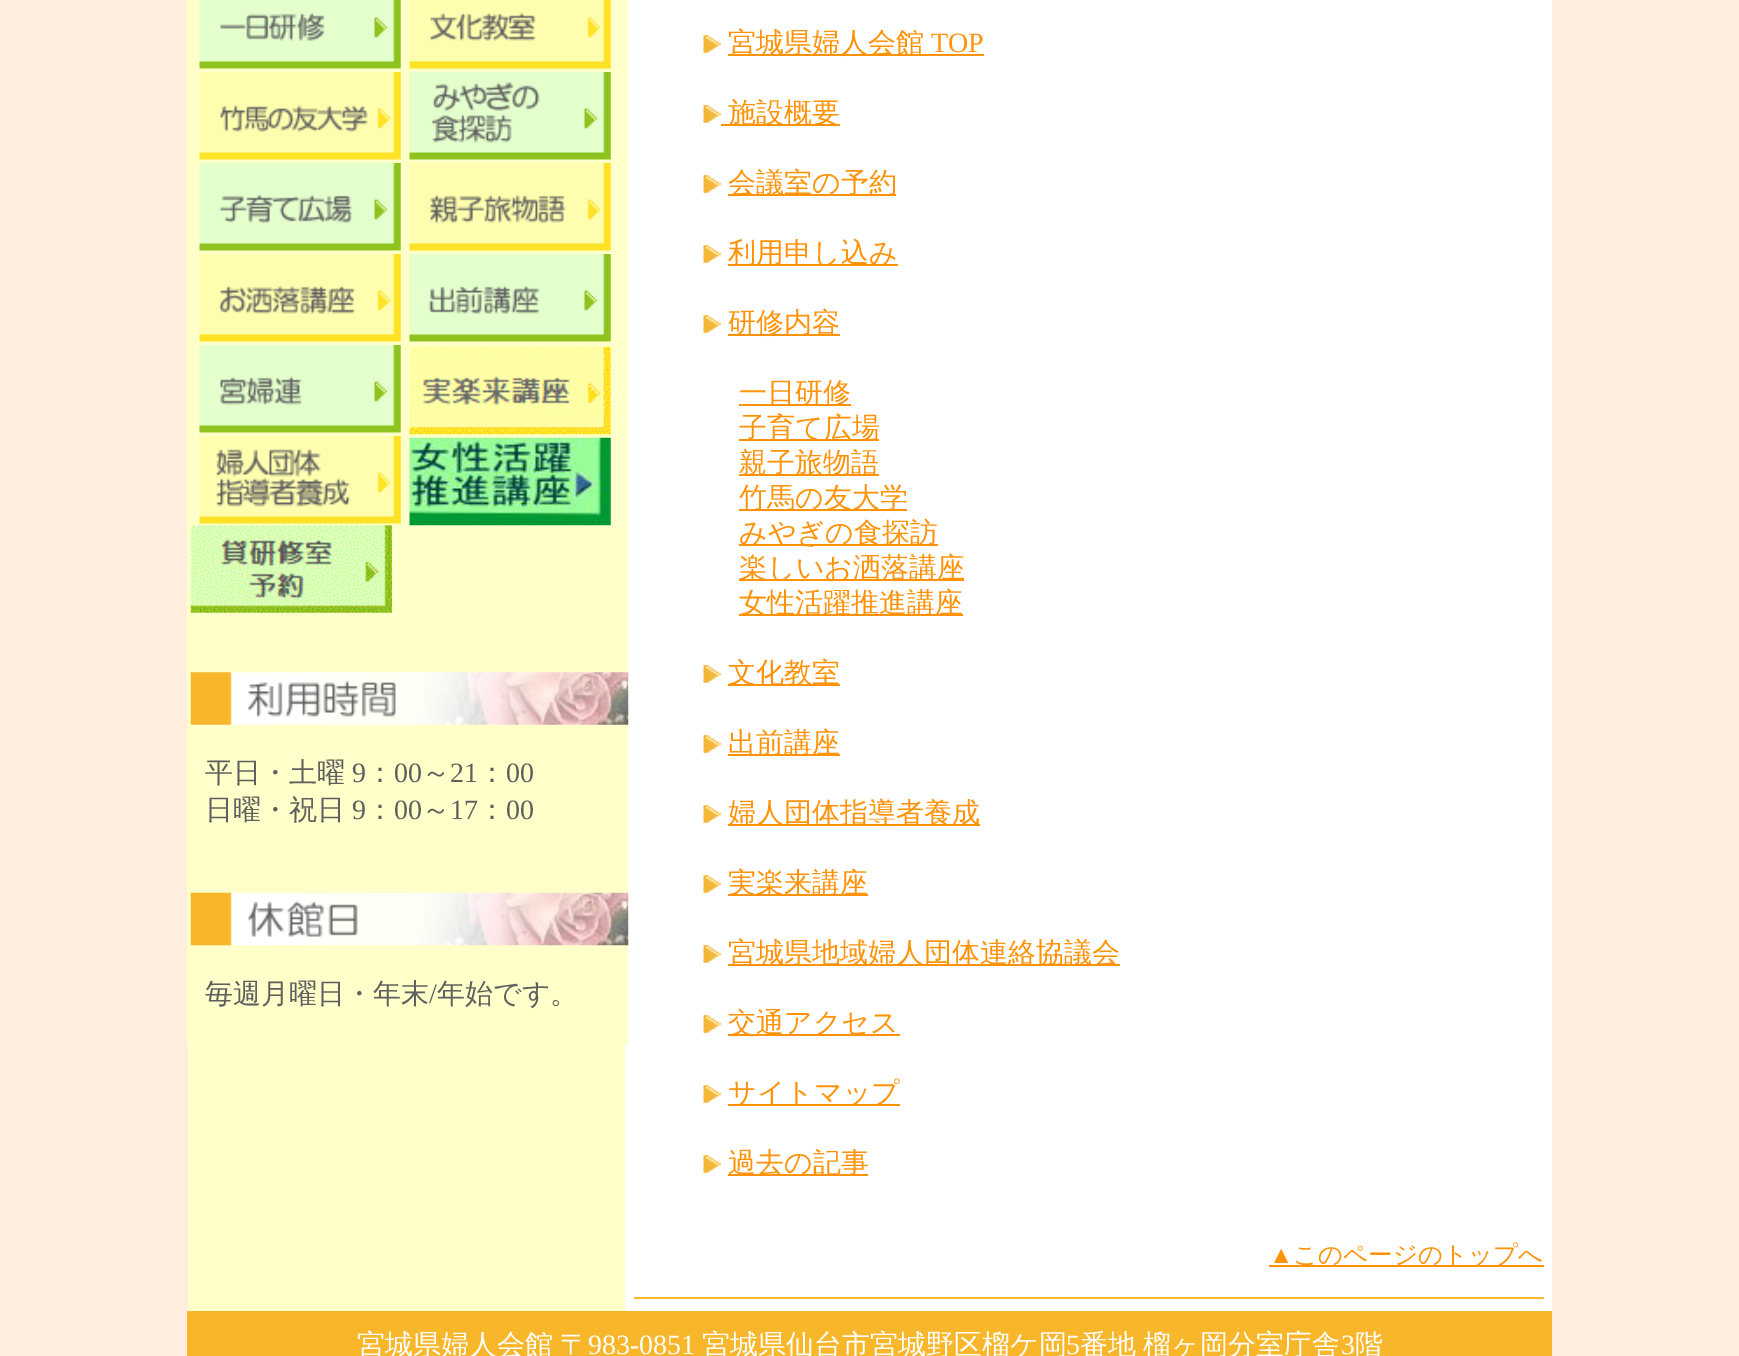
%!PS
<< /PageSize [1739 1356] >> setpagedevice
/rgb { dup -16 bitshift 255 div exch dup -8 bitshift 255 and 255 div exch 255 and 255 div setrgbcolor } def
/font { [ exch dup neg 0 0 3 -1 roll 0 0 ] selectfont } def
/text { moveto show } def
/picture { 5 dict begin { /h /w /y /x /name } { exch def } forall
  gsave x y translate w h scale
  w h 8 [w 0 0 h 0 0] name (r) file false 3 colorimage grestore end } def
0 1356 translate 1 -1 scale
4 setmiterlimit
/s1 { /WenQuanYiZenHei-Medium 28 font 16#5F5F5F rgb } def
/s2 { /LiberationSerif-Regular 28 font 16#5F5F5F rgb } def
/s3 { /WenQuanYiZenHei-Medium 28 font 16#FF9206 rgb } def
/s4 { /LiberationSerif-Regular 28 font 16#FF9206 rgb } def
/s5 { /LiberationSerif-Regular 24.5 font 16#FF9206 rgb } def
/s6 { /WenQuanYiZenHei-Medium 24.5 font 16#FF9206 rgb } def
/s7 { /LiberationSerif-Regular 28 font 16#FFFFFF rgb } def
/s8 { /WenQuanYiZenHei-Medium 28 font 16#FFFFFF rgb } def
16#FFEEDD rgb
0 0 1739 1356 rectfill
16#FFFFFF rgb
625 0 927 1311 rectfill
16#FFFFCA rgb
188 1045 437 266 rectfill
187 0 441 1045 rectfill
(pic1.raw) 199 0 202 69 picture
(pic2.raw) 409 0 202 69 picture
(pic3.raw) 199 72 202 88 picture
(pic4.raw) 409 72 202 88 picture
(pic5.raw) 199 163 202 88 picture
(pic6.raw) 409 163 202 88 picture
(pic7.raw) 199 254 202 88 picture
(pic8.raw) 409 254 202 88 picture
(pic9.raw) 199 345 202 88 picture
(pic10.raw) 409 346 202 89 picture
(pic11.raw) 199 436 202 88 picture
(pic12.raw) 409 437 202 89 picture
(pic13.raw) 190 525 202 88 picture
(pic14.raw) 190 672 439 53 picture
s1
(平日・土曜) 205 782 text
s2
(9) 352 782 text
s1
(：) 366 782 text
s2
(00) 394 782 text
s1
(～) 422 782 text
s2
(21) 450 782 text
s1
(：) 478 782 text
s2
(00) 506 782 text
s1
(日曜・祝日) 205 819 text
s2
(9) 352 819 text
s1
(：) 366 819 text
s2
(00) 394 819 text
s1
(～) 422 819 text
s2
(17) 450 819 text
s1
(：) 478 819 text
s2
(00) 506 819 text
(pic15.raw) 190 892 439 54 picture
s1
(毎週月曜日・年末) 205 1003 text
s2
(/) 429 1003 text
s1
(年始です。) 437 1003 text
(pic16.raw) 703 35 18 18 picture
16#FF9206 rgb
728 54 256 2 rectfill
(宮城県婦人会館) 728 52 text
s4
(TOP) 931 52 text
(pic16.raw) 703 105 18 18 picture
721 124 119 2 rectfill
s3
(施設概要) 728 122 text
(pic16.raw) 703 175 18 18 picture
728 194 168 2 rectfill
(会議室の予約) 728 192 text
(pic16.raw) 703 245 18 18 picture
728 264 170 2 rectfill
(利用申し込み) 728 262 text
(pic16.raw) 703 315 18 18 picture
728 334 112 2 rectfill
(研修内容) 728 332 text
739 404 112 2 rectfill
(一日研修) 739 402 text
739 439 140 2 rectfill
(子育て広場) 739 437 text
739 474 140 2 rectfill
(親子旅物語) 739 472 text
739 509 168 2 rectfill
(竹馬の友大学) 739 507 text
739 544 199 2 rectfill
(みやぎの食探訪) 739 542 text
739 579 225 2 rectfill
(楽しいお洒落講座) 739 577 text
739 614 224 2 rectfill
(女性活躍推進講座) 739 612 text
(pic16.raw) 703 665 18 18 picture
728 684 112 2 rectfill
(文化教室) 728 682 text
(pic16.raw) 703 735 18 18 picture
728 754 112 2 rectfill
(出前講座) 728 752 text
(pic16.raw) 703 805 18 18 picture
728 824 252 2 rectfill
(婦人団体指導者養成) 728 822 text
(pic16.raw) 703 875 18 18 picture
728 894 140 2 rectfill
(実楽来講座) 728 892 text
(pic16.raw) 703 945 18 18 picture
728 964 392 2 rectfill
(宮城県地域婦人団体連絡協議会) 728 962 text
(pic16.raw) 703 1015 18 18 picture
728 1034 172 2 rectfill
(交通アクセス) 728 1032 text
(pic16.raw) 703 1085 18 18 picture
728 1104 172 2 rectfill
(サイトマップ) 728 1102 text
(pic16.raw) 703 1155 18 18 picture
728 1174 140 2 rectfill
(過去の記事) 728 1172 text
s5
(▲) 1269 1263 text
1269 1265 275 2 rectfill
s6
(このページのトップへ) 1293 1263 text
16#F8B62B rgb
634 1297 910 2 rectfill
187 1311 1365 45 rectfill
/WenQuanYiZenHei-Medium 28 font
16#FFFFFF rgb
357 1354 moveto -1 0 32 (宮城県婦人会館 〒) widthshow
s7
(983-0851) 588 1354 text
s8
(宮城県仙台市宮城野区榴ケ岡) 702 1354 text
s7
(5) 1066 1354 text
/WenQuanYiZenHei-Medium 28 font
1080 1354 moveto -1 0 32 (番地 榴ヶ岡分室庁舎) widthshow
s7
(3) 1341 1354 text
s8
(階) 1355 1354 text
showpage
